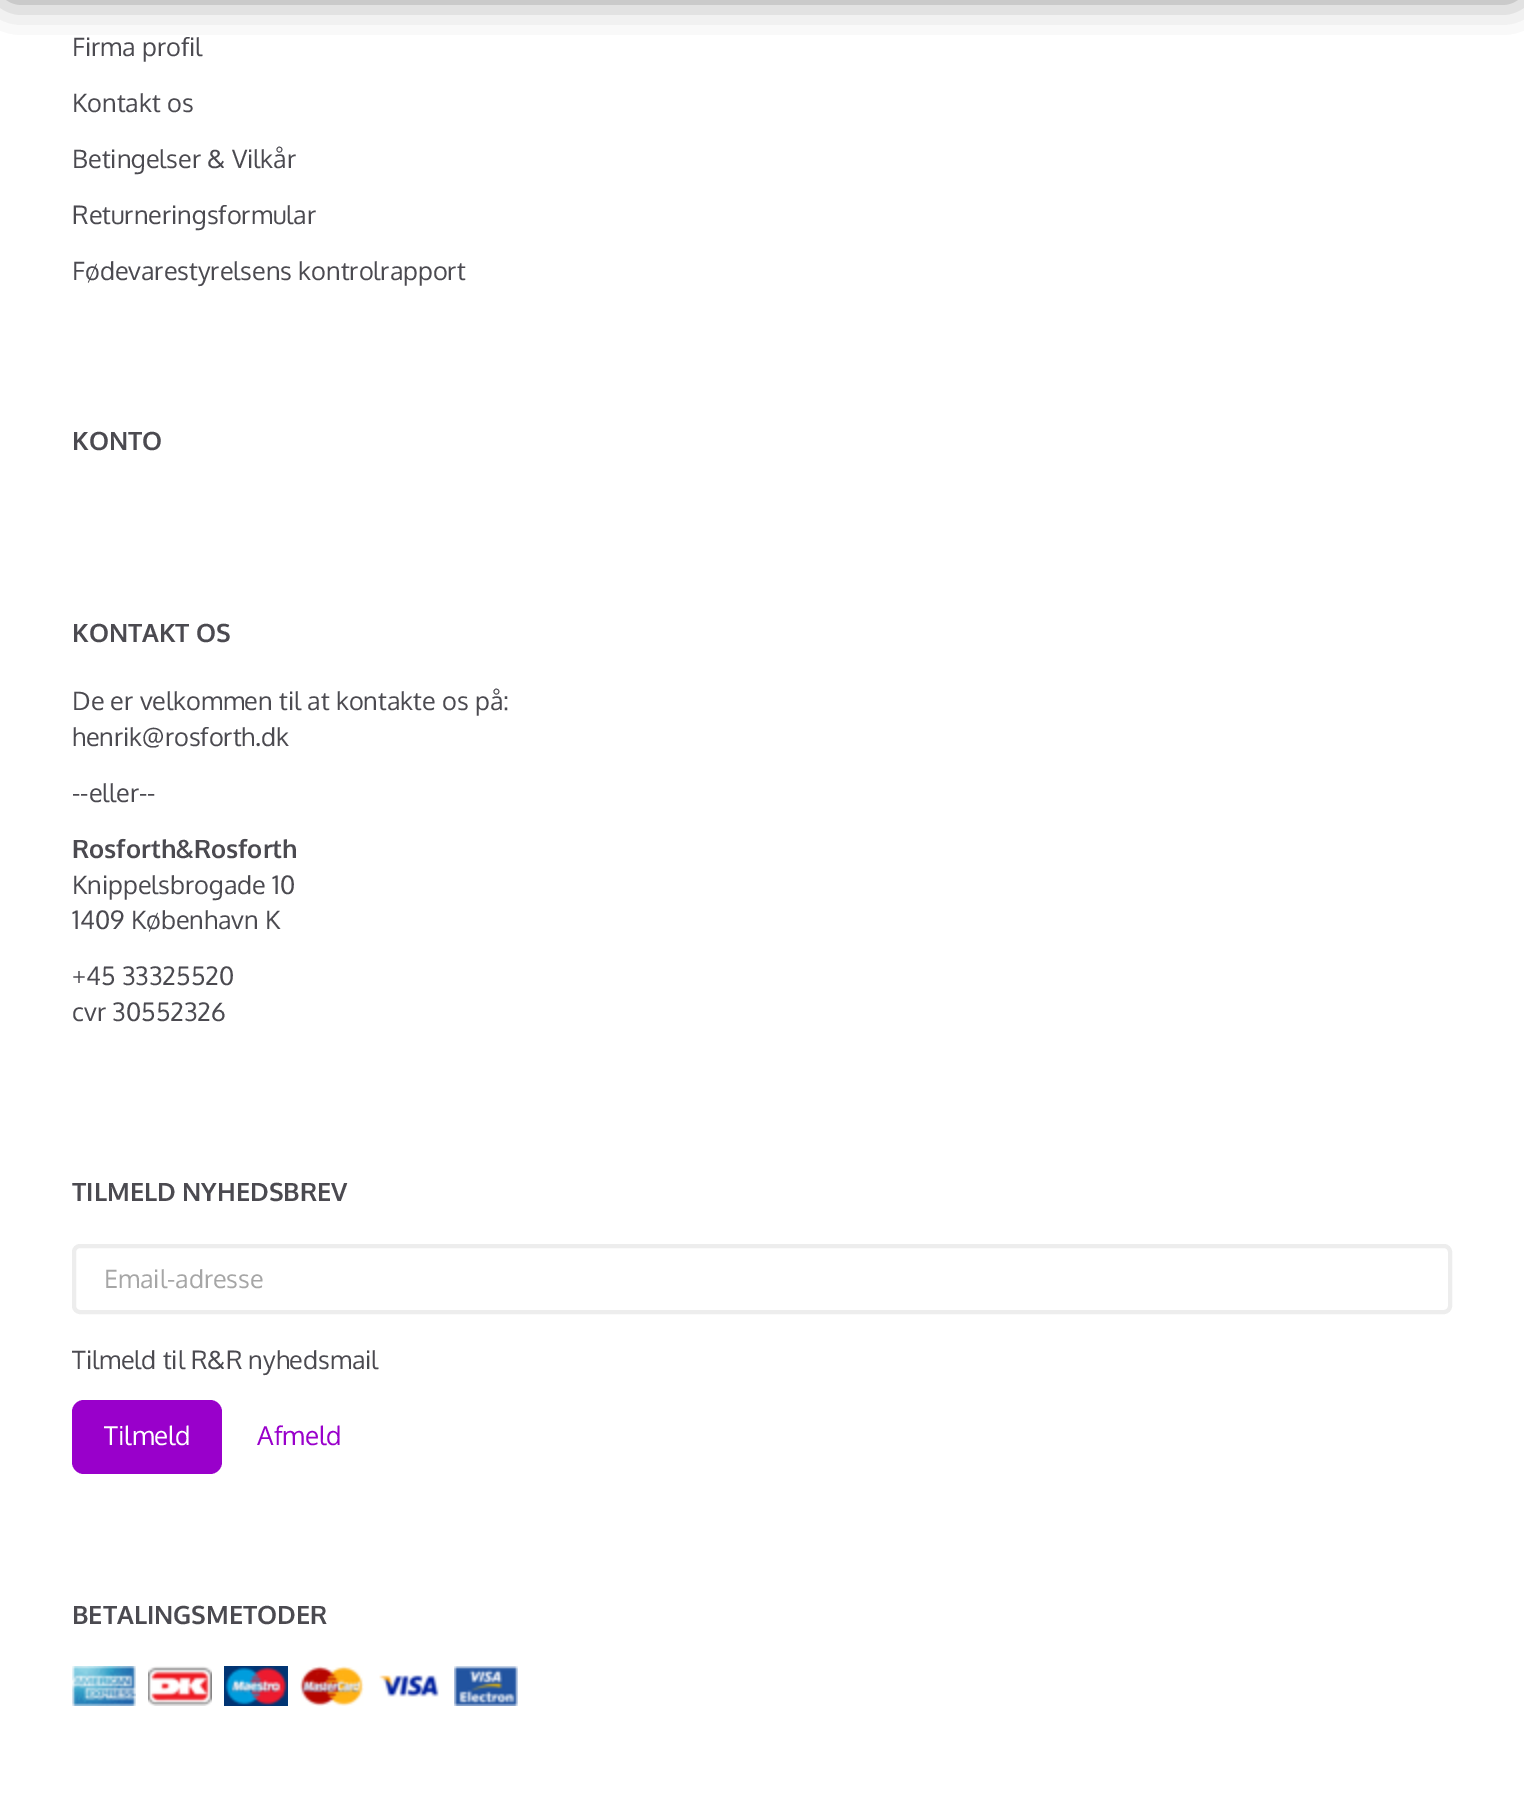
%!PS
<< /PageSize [1524 1813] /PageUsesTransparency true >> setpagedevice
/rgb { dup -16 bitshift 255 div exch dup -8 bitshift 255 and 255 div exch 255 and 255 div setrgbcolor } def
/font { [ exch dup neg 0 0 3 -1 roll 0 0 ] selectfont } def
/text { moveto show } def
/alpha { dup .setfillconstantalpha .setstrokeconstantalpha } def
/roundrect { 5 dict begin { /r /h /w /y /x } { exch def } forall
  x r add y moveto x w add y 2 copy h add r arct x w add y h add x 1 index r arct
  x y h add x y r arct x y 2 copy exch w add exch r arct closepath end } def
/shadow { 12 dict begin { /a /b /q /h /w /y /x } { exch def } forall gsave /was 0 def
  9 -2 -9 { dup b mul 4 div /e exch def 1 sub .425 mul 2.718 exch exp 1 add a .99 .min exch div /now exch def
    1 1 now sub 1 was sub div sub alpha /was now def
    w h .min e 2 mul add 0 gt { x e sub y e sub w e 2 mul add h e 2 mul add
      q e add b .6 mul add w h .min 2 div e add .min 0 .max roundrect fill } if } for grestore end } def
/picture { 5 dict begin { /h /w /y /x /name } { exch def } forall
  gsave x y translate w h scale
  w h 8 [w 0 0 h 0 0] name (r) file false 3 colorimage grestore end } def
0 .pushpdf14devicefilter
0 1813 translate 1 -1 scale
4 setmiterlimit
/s1 { /Oxygen-Regular 25.25 font 16#4B4A50 rgb } def
/s2 { /Oxygen-Bold 25.25 font 16#4B4A50 rgb } def
/s3 { /Oxygen-Regular 25.25 font 16#A6A6A6 rgb } def
/s4 { /Oxygen-Regular 26 font 16#FFFFFF rgb } def
/s5 { /Oxygen-Regular 26 font 16#9900CB rgb } def
16#FFFFFF rgb
0 0 1524 1813 rectfill
16#949494 rgb
10 -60 1504 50 0 20 1 shadow
10 -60 1504 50 0 20 1 shadow
s1
(Firma profil) 72 56 text
(Kontakt os) 72 112 text
(Betingelser & Vilkår) 72 168 text
(Returneringsformular) 72 224 text
(Fødevarestyrelsens kontrolrapport) 72 280 text
s2
(KONTO) 72 450 text
(KONTAKT OS) 72 642 text
s1
(De er velkommen til at kontakte os på:) 72 710 text
(henrik@rosforth.dk) 72 746 text
(--eller--) 72 802 text
s2
(Rosforth&Rosforth) 72 858 text
s1
(Knippelsbrogade 10) 72 894 text
(1409 København K) 72 929 text
(+45 33325520) 72 985 text
(cvr 30552326) 72 1021 text
s2
(TILMELD NYHEDSBREV) 72 1201 text
16#EDEDED rgb
4 setlinewidth
74 1246 1376 66 6 roundrect stroke
s3
(Email-adresse) 104 1288 text
s1
(Tilmeld til R&R nyhedsmail) 72 1369 text
16#9900CB rgb
72 1400 150 74 12 roundrect fill
s4
(Tilmeld) 104 1445 text
s5
(Afmeld) 257 1445 text
s2
(BETALINGSMETODER) 72 1624 text
(pic1.raw) 72 1666 64 40 picture
(pic2.raw) 148 1666 64 40 picture
(pic3.raw) 224 1666 64 40 picture
(pic4.raw) 300 1666 64 40 picture
(pic5.raw) 379 1674 60 23 picture
(pic6.raw) 454 1666 64 40 picture
.poppdf14devicefilter showpage
